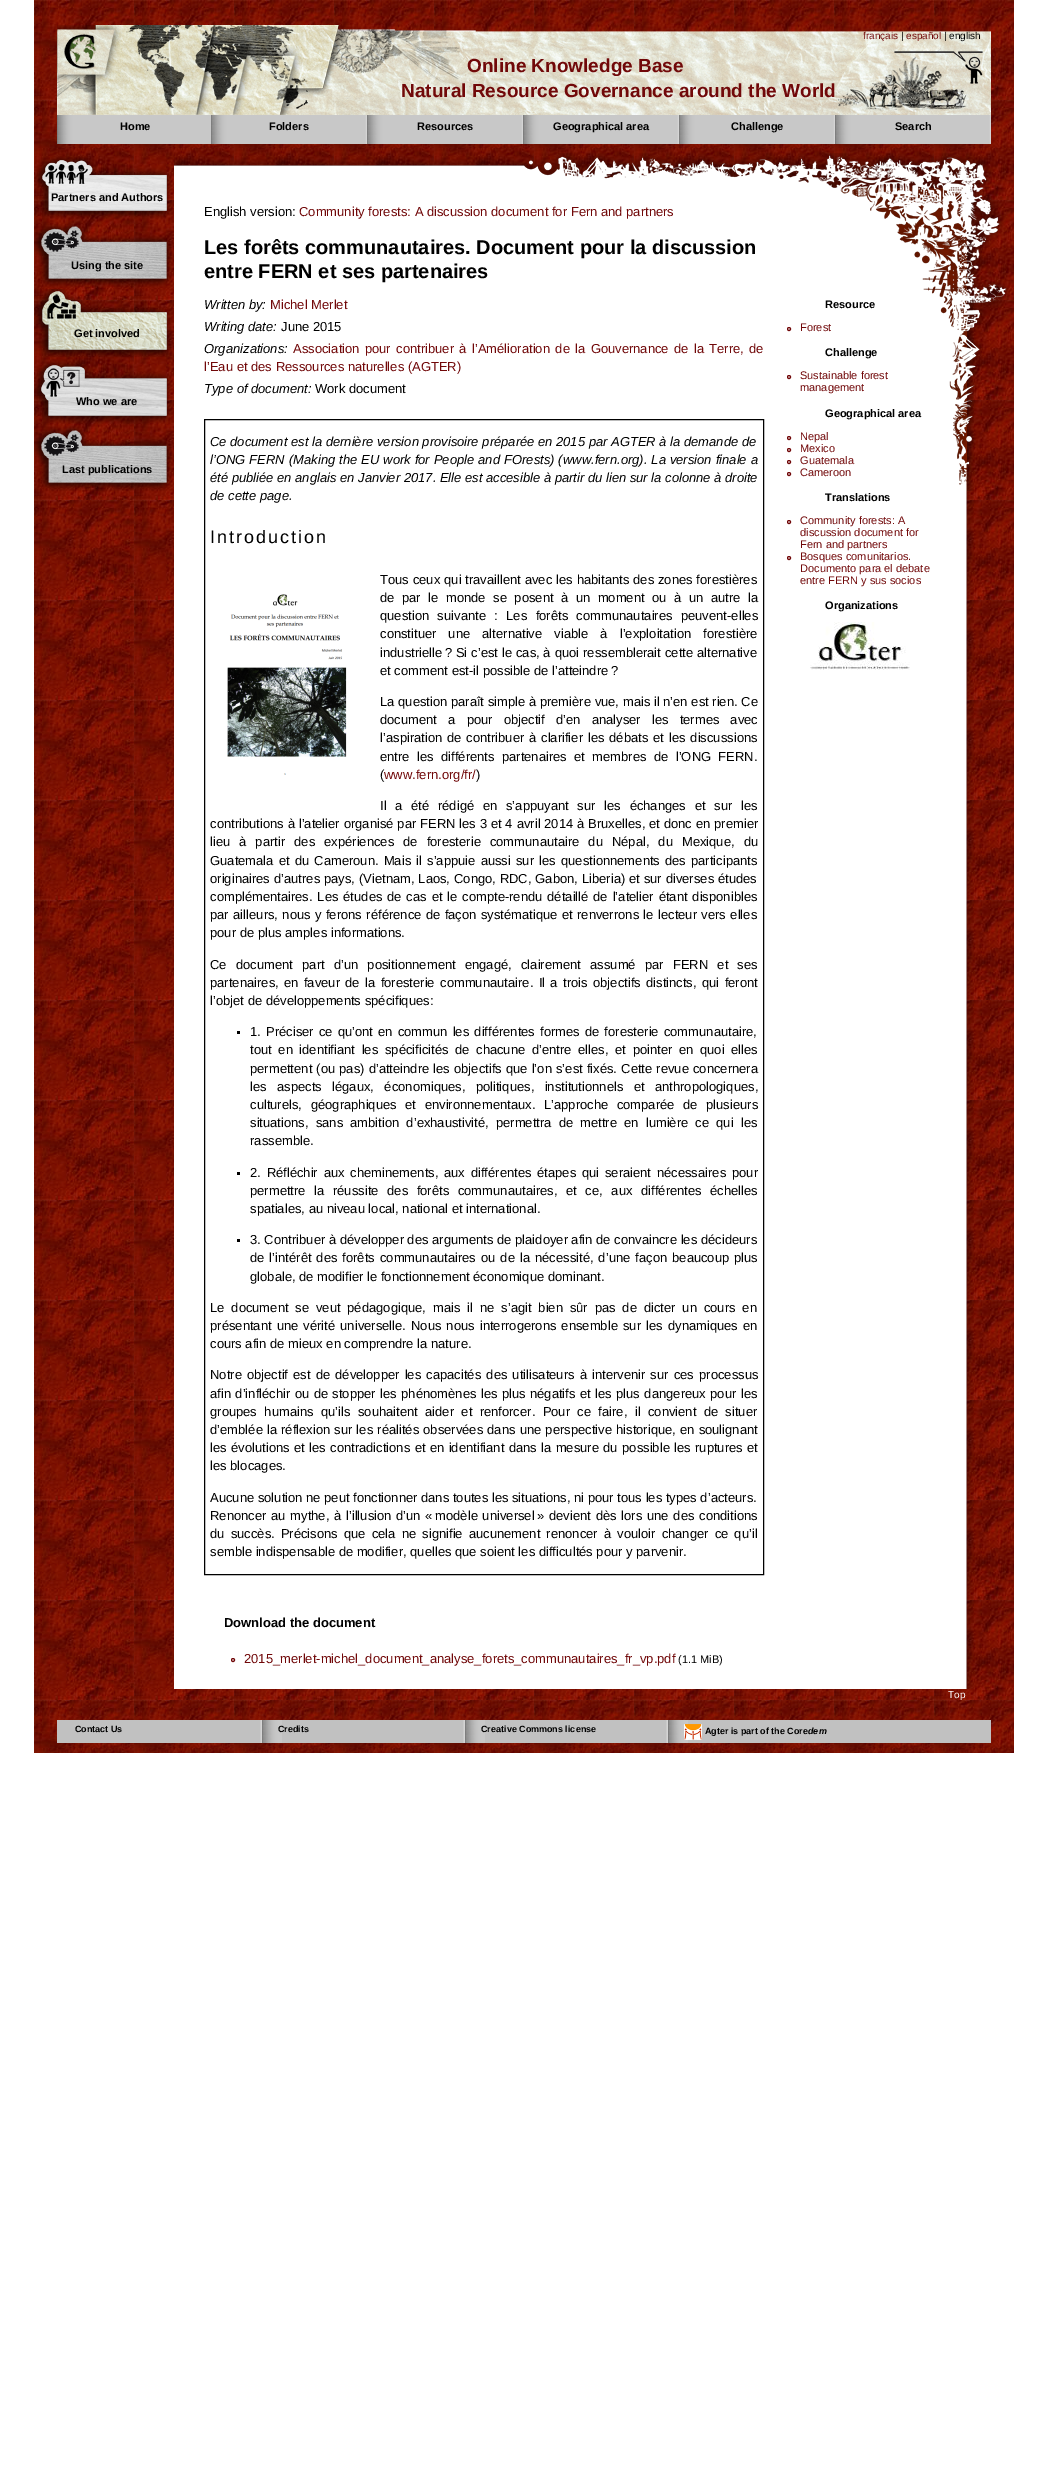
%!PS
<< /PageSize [1048 2466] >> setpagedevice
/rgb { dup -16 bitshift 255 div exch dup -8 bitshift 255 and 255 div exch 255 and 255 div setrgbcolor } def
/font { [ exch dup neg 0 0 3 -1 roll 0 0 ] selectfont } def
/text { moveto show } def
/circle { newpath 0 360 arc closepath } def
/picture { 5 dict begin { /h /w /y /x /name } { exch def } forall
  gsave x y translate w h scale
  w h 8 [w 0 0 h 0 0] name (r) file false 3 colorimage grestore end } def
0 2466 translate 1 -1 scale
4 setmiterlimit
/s1 { /LiberationSans-Regular 10 font 16#710809 rgb } def
/s2 { /LiberationSans-Regular 10 font 16#000000 rgb } def
/s3 { /LiberationSans-Bold 19 font 16#710809 rgb } def
/s4 { /LiberationSans-Bold 11 font 16#000000 rgb } def
/s5 { /LiberationSans-Regular 13 font 16#000000 rgb } def
/s6 { /LiberationSans-Regular 13 font 16#710809 rgb } def
/s7 { /LiberationSans-Bold 20 font 16#000000 rgb } def
/s8 { /LiberationSans-Italic 13 font 16#000000 rgb } def
/s9 { /LiberationSans-Bold 13 font 16#000000 rgb } def
/s10 { /LiberationSans-Regular 11 font 16#000000 rgb } def
/s11 { /LiberationSans-Regular 11 font 16#710809 rgb } def
/s12 { /LiberationSans-Regular 10 font 16#FFFFFF rgb } def
/s13 { /LiberationSans-Bold 9 font 16#000000 rgb } def
/s14 { /LiberationSans-BoldItalic 9 font 16#000000 rgb } def
16#FFFFFF rgb
0 0 1048 2466 rectfill
(pic1.raw) 34 0 980 1753 picture
(pic2.raw) 57 25 934 90 picture
s1
(français) 863 39 text
s2
(|) 901 39 text
s1
(español) 906 39 text
s2
(| english) 944 39 text
s3
(Online Knowledge Base) 467 72 text
(Natural Resource Governance around the World) 401 97 text
(pic3.raw) 57 115 154 29 picture
s4
(Home) 120 130 text
(pic4.raw) 211 115 156 29 picture
(Folders) 269 130 text
(pic4.raw) 367 115 156 29 picture
(Resources) 417 130 text
(pic4.raw) 523 115 156 29 picture
(Geographical area) 553 130 text
(pic4.raw) 679 115 156 29 picture
(Challenge) 731 130 text
(pic4.raw) 835 115 156 29 picture
(Search) 895 130 text
(pic5.raw) 34 154 138 65 picture
(Partners and Authors) 51 201 text
(pic6.raw) 34 221 138 66 picture
(Using the site) 71 269 text
(pic7.raw) 34 289 138 68 picture
(Get involved) 74 337 text
(pic8.raw) 34 359 138 65 picture
(Who we are) 76 405 text
(pic9.raw) 34 425 138 66 picture
(Last publications) 62 473 text
(pic10.raw) 174 153 818 35 picture
(pic11.raw) 940 188 34 1501 picture
16#FFFFFF rgb
174 188 766 1501 rectfill
(pic12.raw) 840 188 166 85 picture
s5
(English version:) 204 216 text
s6
(Community forests: A discussion document for Fern and partners) 299 216 text
s7
(Les forêts communautaires. Document pour la discussion) 204 254 text
(entre FERN et ses partenaires) 204 278 text
s8
(Written by:) 204 309 text
s6
(Michel Merlet) 270 309 text
s8
(Writing date:) 204 331 text
s5
(June 2015) 281 331 text
s8
(Organizations:) 204 353 text
/LiberationSans-Regular 13 font
16#710809 rgb
293 353 moveto 1.75 0 32 (Association pour contribuer à l’Amélioration de la Gouvernance de la Terre, de) widthshow
(l’Eau et des Ressources naturelles \(AGTER\)) 204 371 text
s8
(Type of document:) 204 393 text
s5
(Work document) 315 393 text
204.5 419.5 559 1155 rectstroke
s8
(Ce document est la dernière version provisoire préparée en 2015 par AGTER à la demande de) 210 446 text
210 464 moveto 0.4 0 32 (l’ONG FERN \(Making the EU work for People and FOrests\) \(www.fern.org\). La version finale a) widthshow
(été publiée en anglais en Janvier 2017. Elle est accesible à partir du lien sur la colonne à droite) 210 482 text
(de cette page.) 210 500 text
/LiberationSans-Regular 18 font
210 543 moveto 2 0 (Introduction) ashow
(pic13.raw) 227 594 120 181 picture
/LiberationSans-Regular 13 font
380 584 moveto 0.25 0 32 (Tous ceux qui travaillent avec les habitants des zones forestières) widthshow
380 602 moveto 3.9 0 32 (de par le monde se posent à un moment ou à un autre la) widthshow
380 620 moveto 4.75 0 32 (question suivante : Les forêts communautaires peuvent-elles) widthshow
380 638 moveto 8.5 0 32 (constituer une alternative viable à l’exploitation forestière) widthshow
380 657 moveto 0.25 0 32 (industrielle ? Si c’est le cas, à quoi ressemblerait cette alternative) widthshow
(et comment est-il possible de l’atteindre ?) 380 675 text
(La question paraît simple à première vue, mais il n’en est rien. Ce) 380 706 text
380 724 moveto 7.5 0 32 (document a pour objectif d’en analyser les termes avec) widthshow
380 742 moveto 1.25 0 32 (l’aspiration de contribuer à clarifier les débats et les discussions) widthshow
380 761 moveto 3.75 0 32 (entre les différents partenaires et membres de l’ONG FERN.) widthshow
(\() 380 779 text
s6
(www.fern.org/fr/) 384 779 text
s5
(\)) 476 779 text
380 810 moveto 5.1 0 32 (Il a été rédigé en s’appuyant sur les échanges et sur les) widthshow
210 828 moveto 0.25 0 32 (contributions à l’atelier organisé par FERN les 3 et 4 avril 2014 à Bruxelles, et donc en premier) widthshow
210 846 moveto 5.4 0 32 (lieu à partir des expériences de foresterie communautaire du Népal, du Mexique, du) widthshow
210 865 moveto 1.5 0 32 (Guatemala et du Cameroun. Mais il s’appuie aussi sur les questionnements des participants) widthshow
210 883 moveto 0.25 0 32 (originaires d’autres pays, \(Vietnam, Laos, Congo, RDC, Gabon, Liberia\) et sur diverses études) widthshow
210 901 moveto 1.25 0 32 (complémentaires. Les études de cas et le compte-rendu détaillé de l’atelier étant disponibles) widthshow
210 919 moveto 0.8 0 32 (par ailleurs, nous y ferons référence de façon systématique et renverrons le lecteur vers elles) widthshow
(pour de plus amples informations.) 210 937 text
210 969 moveto 5.6 0 32 (Ce document part d’un positionnement engagé, clairement assumé par FERN et ses) widthshow
210 987 moveto 1.75 0 32 (partenaires, en faveur de la foresterie communautaire. Il a trois objectifs distincts, qui feront) widthshow
(l’objet de développements spécifiques:) 210 1005 text
237 1031 3 3 rectfill
250 1036 moveto 1.5 0 32 (1. Préciser ce qu’ont en commun les différentes formes de foresterie communautaire,) widthshow
250 1054 moveto 3 0 32 (tout en identifiant les spécificités de chacune d’entre elles, et pointer en quoi elles) widthshow
250 1073 moveto 0.5 0 32 (permettent \(ou pas\) d’atteindre les objectifs que l’on s’est fixés. Cette revue concernera) widthshow
250 1091 moveto 6.75 0 32 (les aspects légaux, économiques, politiques, institutionnels et anthropologiques,) widthshow
250 1109 moveto 5 0 32 (culturels, géographiques et environnementaux. L’approche comparée de plusieurs) widthshow
250 1127 moveto 3.5 0 32 (situations, sans ambition d’exhaustivité, permettra de mettre en lumière ce qui les) widthshow
(rassemble.) 250 1145 text
237 1172 3 3 rectfill
250 1177 moveto 2.1 0 32 (2. Réfléchir aux cheminements, aux différentes étapes qui seraient nécessaires pour) widthshow
250 1195 moveto 5 0 32 (permettre la réussite des forêts communautaires, et ce, aux différentes échelles) widthshow
(spatiales, au niveau local, national et international.) 250 1213 text
237 1239 3 3 rectfill
(3. Contribuer à développer des arguments de plaidoyer afin de convaincre les décideurs) 250 1244 text
250 1262 moveto 1.4 0 32 (de l’intérêt des forêts communautaires ou de la nécessité, d’une façon beaucoup plus) widthshow
(globale, de modifier le fonctionnement économique dominant.) 250 1281 text
210 1312 moveto 3.25 0 32 (Le document se veut pédagogique, mais il ne s’agit bien sûr pas de dicter un cours en) widthshow
210 1330 moveto 1.5 0 32 (présentant une vérité universelle. Nous nous interrogerons ensemble sur les dynamiques en) widthshow
(cours afin de mieux en comprendre la nature.) 210 1348 text
210 1379 moveto 1.5 0 32 (Notre objectif est de développer les capacités des utilisateurs à intervenir sur ces processus) widthshow
210 1398 moveto 0.8 0 32 (afin d’infléchir ou de stopper les phénomènes les plus négatifs et les plus dangereux pour les) widthshow
210 1416 moveto 3.75 0 32 (groupes humains qu’ils souhaitent aider et renforcer. Pour ce faire, il convient de situer) widthshow
210 1434 moveto 0.5 0 32 (d’emblée la réflexion sur les réalités observées dans une perspective historique, en soulignant) widthshow
210 1452 moveto 0.75 0 32 (les évolutions et les contradictions et en identifiant dans la mesure du possible les ruptures et) widthshow
(les blocages.) 210 1470 text
(Aucune solution ne peut fonctionner dans toutes les situations, ni pour tous les types d’acteurs.) 210 1502 text
210 1520 moveto 1.1 0 32 (Renoncer au mythe, à l’illusion d’un « modèle universel » devient dès lors une des conditions) widthshow
210 1538 moveto 2.5 0 32 (du succès. Précisons que cela ne signifie aucunement renoncer à vouloir changer ce qu’il) widthshow
(semble indispensable de modifier, quelles que soient les difficultés pour y parvenir.) 210 1556 text
s9
(Download the document) 224 1627 text
16#710809 rgb
233 1660 1.5 circle stroke
s6
(2015_merlet-michel_document_analyse_forets_communautaires_fr_vp.pdf) 244 1663 text
s10
(\(1.1 MiB\)) 678 1663 text
s4
(Resource) 825 308 text
16#710809 rgb
789 329 1.5 circle stroke
s11
(Forest) 800 331 text
s4
(Challenge) 825 356 text
16#710809 rgb
789 377 1.5 circle stroke
s11
(Sustainable forest) 800 379 text
(management) 800 391 text
s4
(Geographical area) 825 417 text
16#710809 rgb
789 438 1.5 circle stroke
s11
(Nepal) 800 440 text
789 450 1.5 circle stroke
(Mexico) 800 452 text
789 462 1.5 circle stroke
(Guatemala) 800 464 text
789 474 1.5 circle stroke
(Cameroon) 800 476 text
s4
(Translations) 825 501 text
16#710809 rgb
789 522 1.5 circle stroke
s11
(Community forests: A) 800 524 text
(discussion document for) 800 536 text
(Fern and partners) 800 548 text
789 558 1.5 circle stroke
(Bosques comunitarios.) 800 560 text
(Documento para el debate) 800 572 text
(entre FERN y sus socios) 800 584 text
s4
(Organizations) 825 609 text
(pic14.raw) 810 622 100 48 picture
(pic15.raw) 922 273 88 43 picture
(pic16.raw) 948 316 38 175 picture
s12
(Top) 948 1698 text
16#C1C1C1 rgb
57 1720 934 23 rectfill
s13
(Contact Us) 75 1732 text
(pic17.raw) 260 1720 22 23 picture
(Credits) 278 1732 text
(pic17.raw) 463 1720 22 23 picture
(Creative Commons license) 481 1732 text
(pic17.raw) 666 1720 22 23 picture
(pic18.raw) 684 1724 18 16 picture
(Agter is part of the Core) 705 1734 text
s14
(dem) 808 1734 text
showpage
